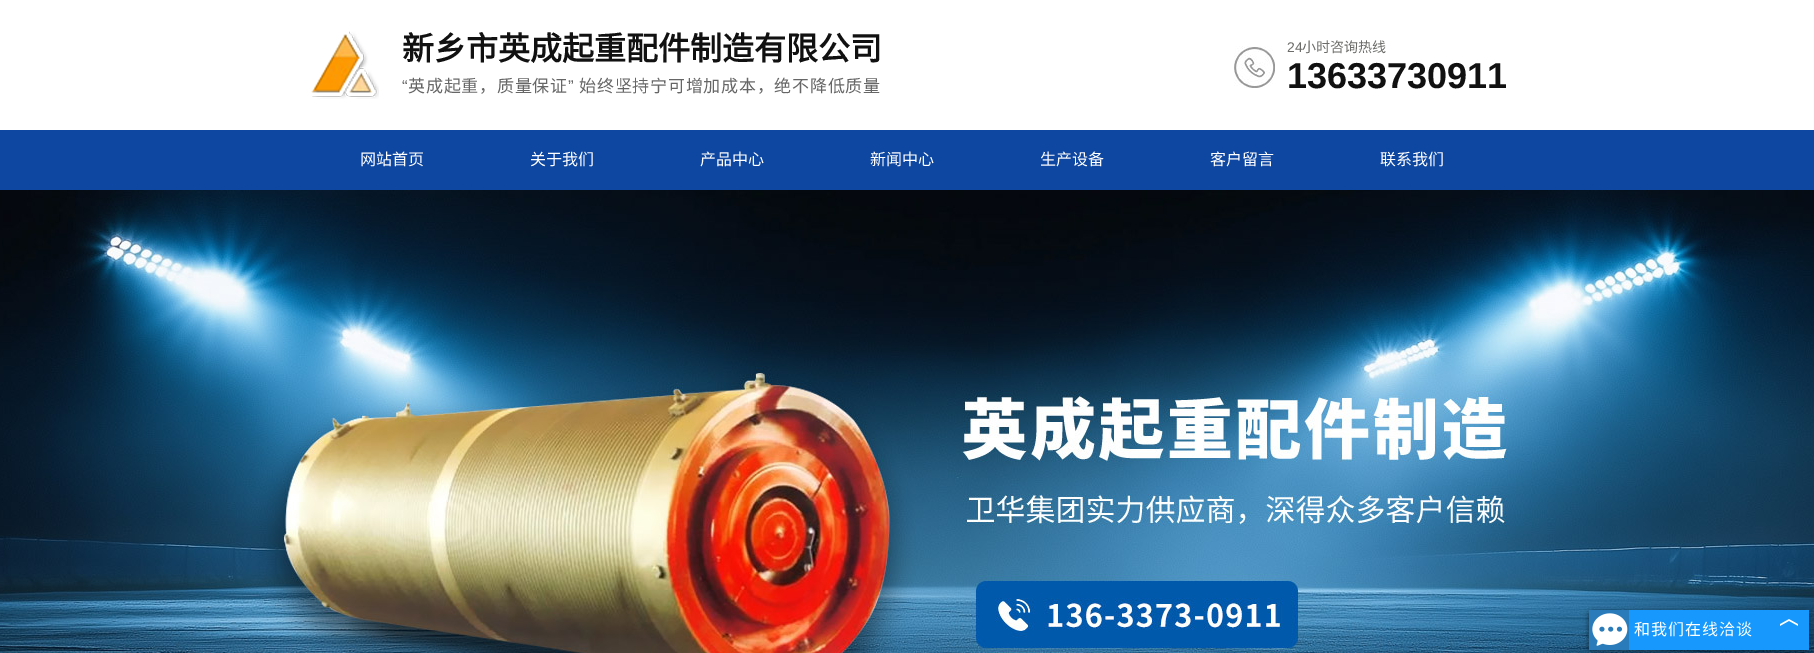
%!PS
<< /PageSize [1814 653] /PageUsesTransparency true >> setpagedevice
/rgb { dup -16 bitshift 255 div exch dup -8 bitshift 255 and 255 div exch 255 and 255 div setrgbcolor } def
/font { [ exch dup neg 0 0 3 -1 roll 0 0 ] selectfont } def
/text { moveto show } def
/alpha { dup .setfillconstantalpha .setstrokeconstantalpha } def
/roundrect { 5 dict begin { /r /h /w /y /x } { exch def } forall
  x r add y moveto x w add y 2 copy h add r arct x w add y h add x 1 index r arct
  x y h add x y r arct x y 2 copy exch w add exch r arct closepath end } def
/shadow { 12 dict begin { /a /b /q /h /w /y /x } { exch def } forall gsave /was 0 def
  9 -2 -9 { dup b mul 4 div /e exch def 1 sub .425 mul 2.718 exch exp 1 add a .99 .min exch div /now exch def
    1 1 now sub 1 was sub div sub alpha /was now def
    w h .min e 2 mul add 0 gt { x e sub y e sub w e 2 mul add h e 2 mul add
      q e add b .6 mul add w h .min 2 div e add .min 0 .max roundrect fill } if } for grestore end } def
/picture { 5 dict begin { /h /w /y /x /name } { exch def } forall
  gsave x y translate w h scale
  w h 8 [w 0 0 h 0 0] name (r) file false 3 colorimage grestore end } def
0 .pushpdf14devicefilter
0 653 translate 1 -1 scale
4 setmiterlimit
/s1 { /NotoSansCJKSC-Bold 32 font 16#111111 rgb } def
/s2 { /LiberationSans-Regular 14 font 16#6C6C6A rgb } def
/s3 { /NotoSansCJKSC-Regular 14 font 16#6C6C6A rgb } def
/s4 { /LiberationSans-Bold 36 font 16#111111 rgb } def
/s5 { /NotoSansCJKSC-Regular 16 font 16#FFFFFF rgb } def
16#FFFFFF rgb
0 0 1814 653 rectfill
(pic1.raw) 311 31 68 68 picture
s1
(新乡市英成起重配件制造有限公司) 402 60 text
/LiberationSans-Regular 17 font
16#666666 rgb
402 92 moveto 0.75 0 (“) ashow
/NotoSansCJKSC-Regular 17 font
408 92 moveto 0.75 0 (英成起重，质量保证) ashow
/LiberationSans-Regular 17 font
568 92 moveto 0.75 0 (”) ashow
/NotoSansCJKSC-Regular 17 font
579 92 moveto 0.75 0 (始终坚持宁可增加成本，绝不降低质量) ashow
(pic2.raw) 1234 46 41 42 picture
s2
(24) 1287 52 text
s3
(小时咨询热线) 1302 52 text
s4
(13633730911) 1287 88 text
16#0E47A1 rgb
0 130 1814 60 rectfill
s5
(网站首页) 360 165 text
(关于我们) 530 165 text
(产品中心) 700 165 text
(新闻中心) 870 165 text
(生产设备) 1040 165 text
(客户留言) 1210 165 text
(联系我们) 1380 165 text
(pic3.raw) 0 190 1814 463 picture
16#000000 rgb
1588 611 220 40 4 2.5 0.4 shadow
16#1798FC rgb
1629 610 180 40 rectfill
16#2A7BB9 rgb
1589 610 40 40 rectfill
(pic4.raw) 1592 613 36 33 picture
16#FFFFFF rgb
1634 635 moveto 1 0 (和我们在线洽谈) ashow
(pic5.raw) 1780 619 18 7 picture
.poppdf14devicefilter showpage
